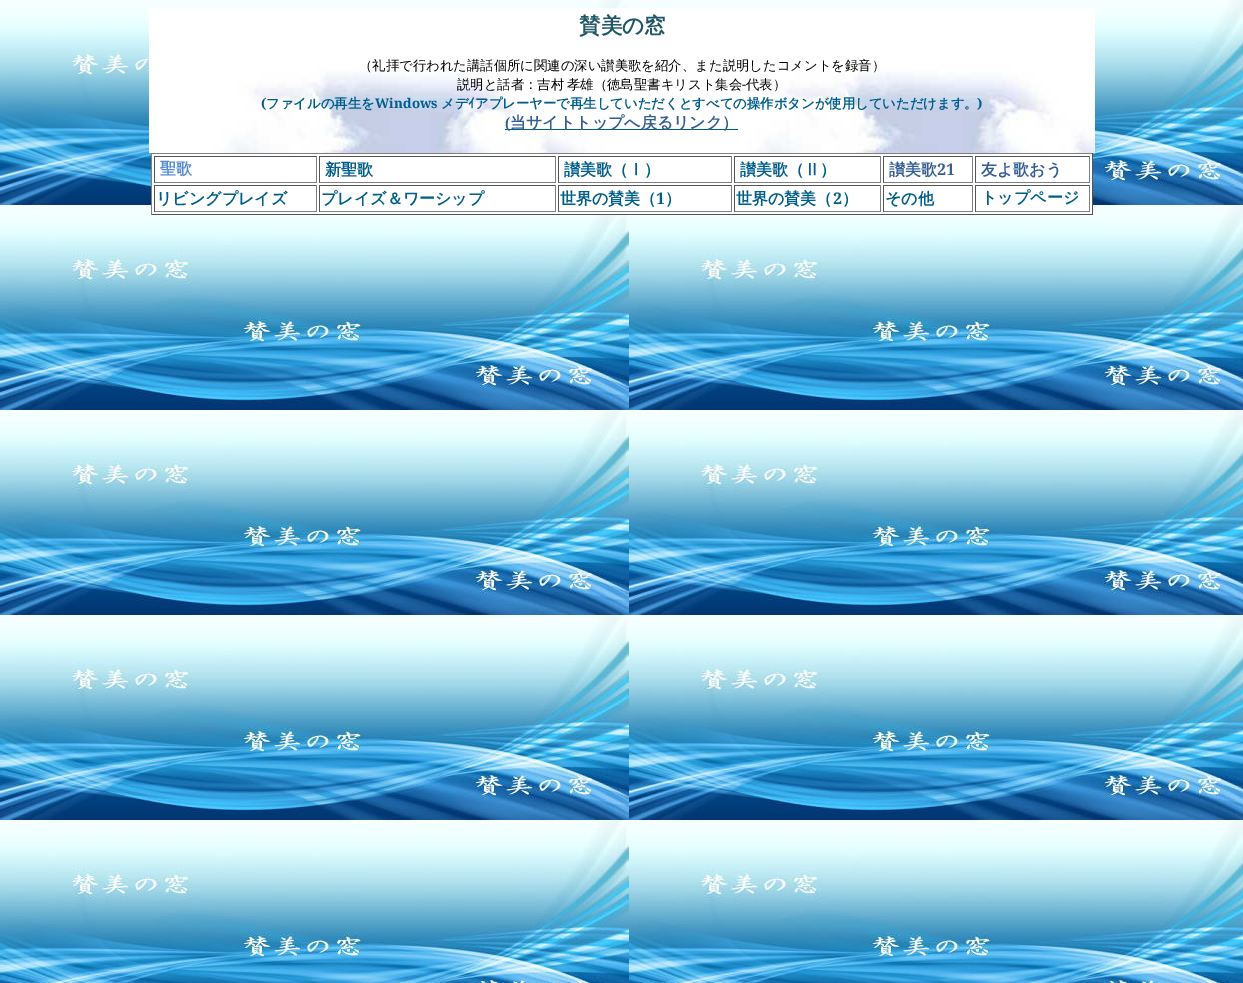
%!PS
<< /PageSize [1243 983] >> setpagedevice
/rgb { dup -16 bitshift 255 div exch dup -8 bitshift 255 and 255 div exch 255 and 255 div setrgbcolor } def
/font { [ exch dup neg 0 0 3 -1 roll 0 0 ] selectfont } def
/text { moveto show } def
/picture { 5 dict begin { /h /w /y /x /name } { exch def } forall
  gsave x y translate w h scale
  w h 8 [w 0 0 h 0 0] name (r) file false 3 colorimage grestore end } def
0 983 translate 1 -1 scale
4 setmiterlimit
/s1 { /WenQuanYiZenHei-Bold 21.5 font 16#215868 rgb } def
/s2 { /WenQuanYiZenHei-Medium 13.35 font 16#000000 rgb } def
/s3 { /NotoSerif-Regular 13.35 font 16#000000 rgb } def
/s4 { /NotoSerif-Bold 13.35 font 16#005E8A rgb } def
/s5 { /WenQuanYiZenHei-Bold 13.35 font 16#005E8A rgb } def
/s6 { /IPAPGothic-Bold 13.35 font 16#005E8A rgb } def
/s7 { /LiberationSerif-Bold 16 font 16#365F91 rgb } def
/s8 { /WenQuanYiZenHei-Bold 16 font 16#365F91 rgb } def
/s9 { /WenQuanYiZenHei-Bold 16 font 16#548DD4 rgb } def
/s10 { /WenQuanYiZenHei-Bold 16 font 16#005E8A rgb } def
/s11 { /NotoSerif-Bold 16 font 16#365F91 rgb } def
/s12 { /NotoSerif-Bold 16 font 16#005E8A rgb } def
16#FFFFFF rgb
0 0 1243 983 rectfill
(pic1.raw) 0 0 1243 983 picture
(pic2.raw) 149 8 946 145 picture
s1
(賛美の窓) 579 33 text
s2
(（礼拝で行われた講話個所に関連の深い讃美歌を紹介、また説明したコメントを録音）) 359 70 text
457 89 moveto -1 0 32 (説明と話者：吉村 孝雄（徳島聖書キリスト集会) widthshow
s3
(-) 742 89 text
s2
(代表）) 746 89 text
s4
(\() 261 108 text
s5
(ファイルの再生を) 266 108 text
s4
(Windows) 375 108 text
s5
(メデ) 441 108 text
s6
(ｲ) 468 108 text
s5
(アプレーヤーで再生していただくとすべての操作ボタンが使用していただけます。) 475 108 text
s4
(\)) 977 108 text
505 129 233 1 rectfill
s7
(\() 505 128 text
s8
(当サイトトップへ戻るリンク）) 510 128 text
16#FFFFFF rgb
152 154 940 60 rectfill
16#808080 rgb
151 153 942 1 rectfill
16#555555 rgb
1092 153 1 62 rectfill
151 214 942 1 rectfill
16#808080 rgb
151 153 1 62 rectfill
16#555555 rgb
154 156 163 1 rectfill
16#808080 rgb
316 156 1 27 rectfill
154 182 163 1 rectfill
16#555555 rgb
154 156 1 27 rectfill
s9
(聖歌) 160 174 text
16#555555 rgb
319 156 237 1 rectfill
16#808080 rgb
555 156 1 27 rectfill
319 182 237 1 rectfill
16#555555 rgb
319 156 1 27 rectfill
s10
(新聖歌) 325 175 text
16#555555 rgb
558 156 174 1 rectfill
16#808080 rgb
731 156 1 27 rectfill
558 182 174 1 rectfill
16#555555 rgb
558 156 1 27 rectfill
s10
(讃美歌（Ⅰ）) 564 175 text
16#555555 rgb
734 156 147 1 rectfill
16#808080 rgb
880 156 1 27 rectfill
734 182 147 1 rectfill
16#555555 rgb
734 156 1 27 rectfill
s10
(讃美歌（Ⅱ）) 740 175 text
16#555555 rgb
883 156 90 1 rectfill
16#808080 rgb
972 156 1 27 rectfill
883 182 90 1 rectfill
16#555555 rgb
883 156 1 27 rectfill
s8
(讃美歌) 889 175 text
s11
(21) 937 175 text
16#555555 rgb
975 156 115 1 rectfill
16#808080 rgb
1089 156 1 27 rectfill
975 182 115 1 rectfill
16#555555 rgb
975 156 1 27 rectfill
s8
(友よ歌おう) 981 175 text
16#555555 rgb
154 185 163 1 rectfill
16#808080 rgb
316 185 1 27 rectfill
154 211 163 1 rectfill
16#555555 rgb
154 185 1 27 rectfill
s10
(リビングプレイズ) 156 204 text
16#555555 rgb
319 185 237 1 rectfill
16#808080 rgb
555 185 1 27 rectfill
319 211 237 1 rectfill
16#555555 rgb
319 185 1 27 rectfill
s10
(プレイズ＆ワーシップ) 321 204 text
16#555555 rgb
558 185 174 1 rectfill
16#808080 rgb
731 185 1 27 rectfill
558 211 174 1 rectfill
16#555555 rgb
558 185 1 27 rectfill
s10
(世界の賛美（) 560 204 text
s12
(1) 656 204 text
s10
(）) 665 204 text
16#555555 rgb
734 185 147 1 rectfill
16#808080 rgb
880 185 1 27 rectfill
734 211 147 1 rectfill
16#555555 rgb
734 185 1 27 rectfill
s10
(世界の賛美（) 736 204 text
s12
(2) 833 204 text
s10
(）) 842 204 text
16#555555 rgb
883 185 90 1 rectfill
16#808080 rgb
972 185 1 27 rectfill
883 211 90 1 rectfill
16#555555 rgb
883 185 1 27 rectfill
s10
(その他) 885 204 text
16#555555 rgb
975 185 115 1 rectfill
16#808080 rgb
1089 185 1 27 rectfill
975 211 115 1 rectfill
16#555555 rgb
975 185 1 27 rectfill
s10
(トップページ) 981 203 text
showpage
